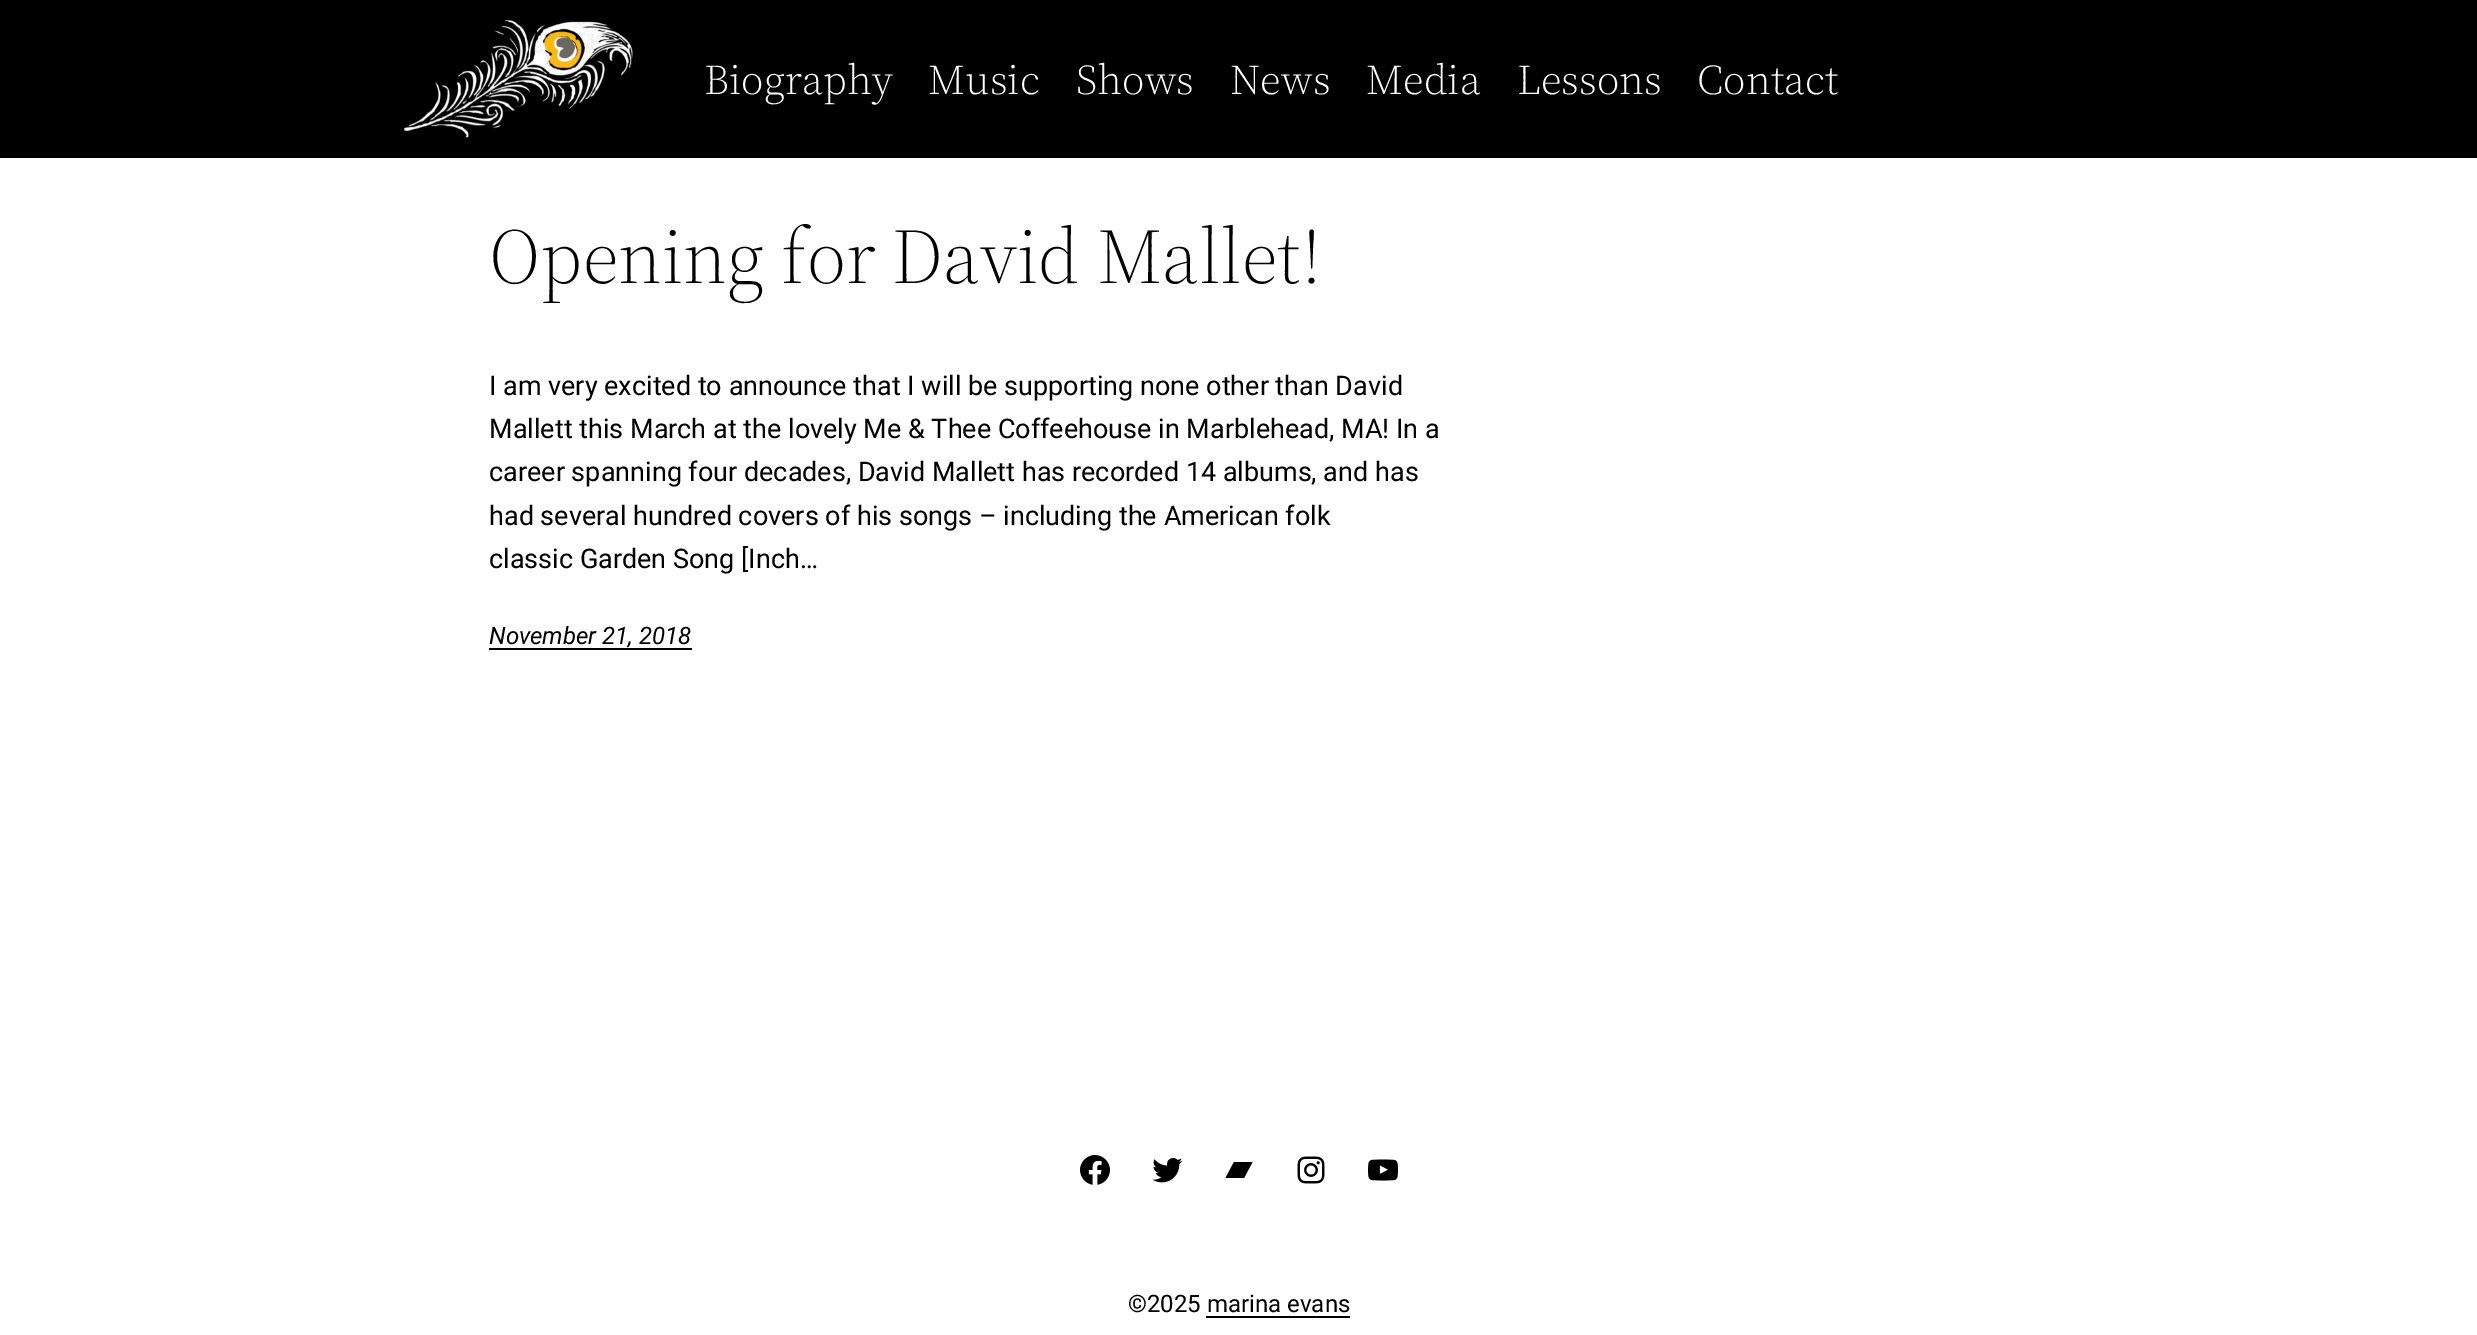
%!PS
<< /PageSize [2477 1335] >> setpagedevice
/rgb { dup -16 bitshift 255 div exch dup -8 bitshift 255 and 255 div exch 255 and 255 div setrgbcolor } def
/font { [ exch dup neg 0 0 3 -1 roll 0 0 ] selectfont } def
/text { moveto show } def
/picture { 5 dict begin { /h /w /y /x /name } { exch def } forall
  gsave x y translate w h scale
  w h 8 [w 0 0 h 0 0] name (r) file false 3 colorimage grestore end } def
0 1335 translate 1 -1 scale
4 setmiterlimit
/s1 { /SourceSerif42-Light 42 font 16#FFFFFF rgb } def
/s2 { /SourceSerif4-Light 78 font 16#000000 rgb } def
/s3 { /Roboto-Regular 27 font 16#000000 rgb } def
/s4 { /Roboto-Italic 24 font 16#000000 rgb } def
/s5 { /Roboto-Regular 24 font 16#000000 rgb } def
16#FFFFFF rgb
0 0 2477 1335 rectfill
16#000000 rgb
0 0 2477 158 rectfill
(pic1.raw) 403 19 230 119 picture
s1
(Biography) 704 94 text
(Music) 928 94 text
(Shows) 1076 94 text
(News) 1230 94 text
(Media) 1366 94 text
(Lessons) 1517 94 text
(Contact) 1697 94 text
s2
(Opening for David Mallet!) 489 283 text
s3
(I am very excited to announce that I will be supporting none other than David) 489 395 text
(Mallett this March at the lovely Me & Thee Coffeehouse in Marblehead, MA! In a) 489 438 text
(career spanning four decades, David Mallett has recorded 14 albums, and has) 489 481 text
(had several hundred covers of his songs – including the American folk) 489 525 text
(classic Garden Song [Inch…) 489 568 text
s4
(November 21, 2018) 489 644 text
489 648 203 2 rectfill
(pic2.raw) 1080 1155 30 30 picture
(pic3.raw) 1152 1158 31 25 picture
1244 1178 moveto 1225.5 1178 lineto 1234 1162 lineto 1252.5 1162 lineto 1244 1178 lineto fill
(pic4.raw) 1297 1156 28 28 picture
(pic5.raw) 1368 1159 30 22 picture
s5
(©2025 marina evans) 1128 1312 text
1206 1316 144 2 rectfill
showpage
